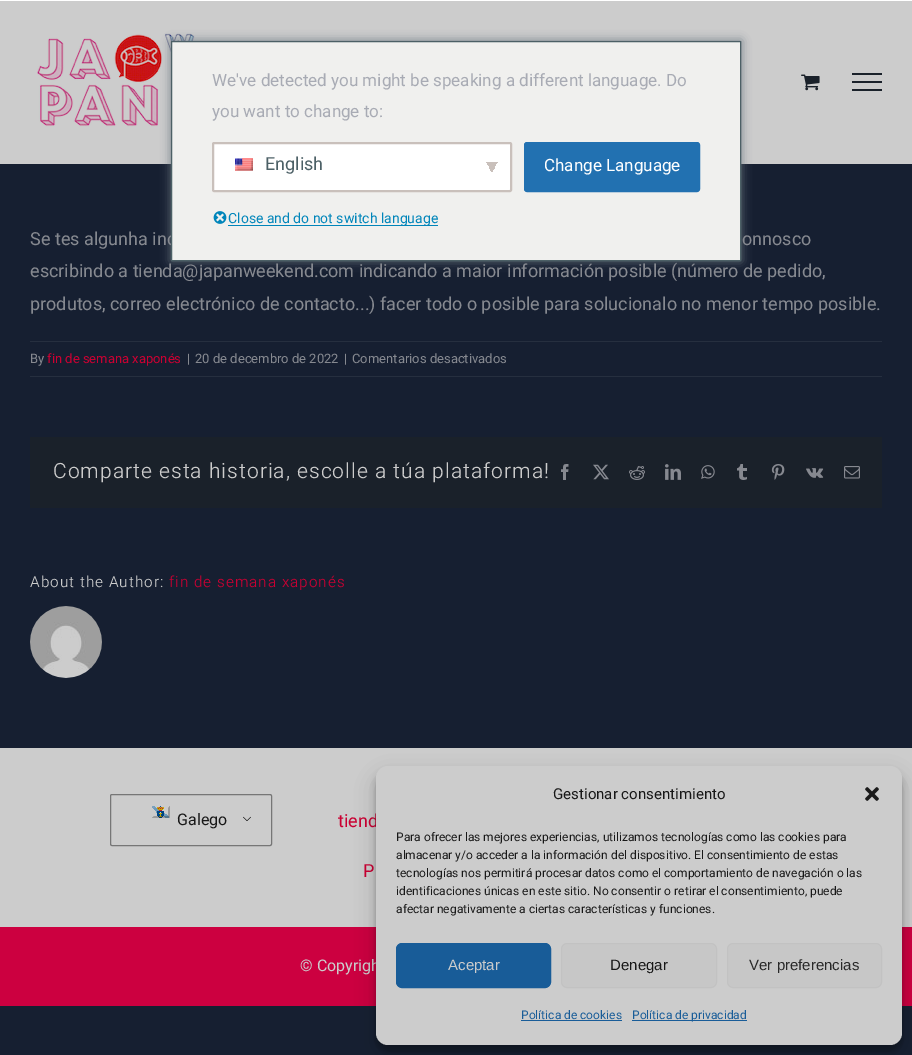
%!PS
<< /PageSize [912 1055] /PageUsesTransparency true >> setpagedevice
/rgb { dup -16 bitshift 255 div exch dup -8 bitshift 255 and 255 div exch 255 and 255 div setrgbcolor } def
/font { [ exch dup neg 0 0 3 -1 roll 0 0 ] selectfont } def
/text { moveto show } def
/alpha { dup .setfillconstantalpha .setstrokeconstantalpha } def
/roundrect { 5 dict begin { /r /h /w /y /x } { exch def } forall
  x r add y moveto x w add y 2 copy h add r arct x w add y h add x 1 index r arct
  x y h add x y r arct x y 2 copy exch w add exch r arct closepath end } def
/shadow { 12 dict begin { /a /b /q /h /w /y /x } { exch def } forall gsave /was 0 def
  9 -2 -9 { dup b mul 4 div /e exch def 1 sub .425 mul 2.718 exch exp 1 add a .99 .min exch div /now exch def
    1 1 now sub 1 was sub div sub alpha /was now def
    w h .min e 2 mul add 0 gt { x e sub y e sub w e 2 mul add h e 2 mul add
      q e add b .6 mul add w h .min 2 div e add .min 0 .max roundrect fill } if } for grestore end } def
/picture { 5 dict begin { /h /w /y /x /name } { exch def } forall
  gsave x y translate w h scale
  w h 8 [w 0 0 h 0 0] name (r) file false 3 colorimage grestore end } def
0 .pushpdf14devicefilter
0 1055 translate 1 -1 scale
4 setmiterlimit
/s1 { /Heebo-Regular 18 font 16#868990 rgb } def
/s2 { /Heebo-Regular 17 font 16#A8ABB4 rgb } def
/s3 { /Heebo-Regular 18 font 16#4C6066 rgb } def
/s4 { /Heebo-Regular 17 font 16#FFFFFF rgb } def
/s5 { /Heebo-Regular 14 font 16#0085BA rgb } def
/s6 { /Heebo-Regular 13 font 16#868990 rgb } def
/s7 { /Heebo-Regular 13 font 16#CA0032 rgb } def
/s8 { /Heebo-Regular 16 font 16#181818 rgb } def
/s9 { /Heebo-Regular 18 font 16#CA0032 rgb } def
/s10 { /Heebo-Regular 16 font 16#CCCCCC rgb } def
/s11 { /Heebo-Regular 15 font 16#181818 rgb } def
/s12 { /Heebo-Regular 12 font 16#181818 rgb } def
/s13 { /LiberationSans-Regular 15 font 16#CCCCCC rgb } def
/s14 { /LiberationSans-Regular 15 font 16#181818 rgb } def
/s15 { /LiberationSans-Regular 15 font 16#292929 rgb } def
/s16 { /Heebo-Regular 12 font 16#185C98 rgb } def
16#161F31 rgb
0 0 912 1055 rectfill
16#CCCCCC rgb
0 1 912 163 rectfill
(pic3.raw) 37 33 159 95 picture
16#6C7781 rgb
171 41 570 220 0 5 1 shadow
s1
(Se tes algunha inc) 30 245 text
16#F0F0EE rgb
171.5 41.5 moveto 740.5 41.5 lineto 740.5 260.5 lineto 171.5 260.5 lineto closepath gsave fill grestore
16#4C6066 rgb
stroke
s2
(We've detected you might be speaking a different language. Do) 212 86 text
(you want to change to:) 212 117 text
16#FFFFFF rgb
212 142 300 50 2 roundrect fill
gsave 492 162 moveto 498 162 lineto 498 174 lineto 492 174 lineto closepath clip newpath
<< /ShadingType 2 /ColorSpace /DeviceRGB /Coords [490 165 500 170] /Extend [true true] /Function << /FunctionType 3 /Domain [0 1] /Functions [<< /FunctionType 2 /Domain [0 1] /C0 [0.788 0.753 0.733] /C1 [0.788 0.753 0.733] /N 1 >> << /FunctionType 2 /Domain [0 1] /C0 [1 1 1] /C1 [1 1 1] /N 1 >>] /Bounds [0.5] /Encode [0 1 0 1] >> >> shfill grestore
gsave 486 162 moveto 492 162 lineto 492 174 lineto 486 174 lineto closepath clip newpath
<< /ShadingType 2 /ColorSpace /DeviceRGB /Coords [484 170 494 165] /Extend [true true] /Function << /FunctionType 3 /Domain [0 1] /Functions [<< /FunctionType 2 /Domain [0 1] /C0 [1 1 1] /C1 [1 1 1] /N 1 >> << /FunctionType 2 /Domain [0 1] /C0 [0.788 0.753 0.733] /C1 [0.788 0.753 0.733] /N 1 >>] /Bounds [0.5] /Encode [0 1 0 1] >> >> shfill grestore
16#C9C0BB rgb
2 setlinewidth
213 143 298 48 1 roundrect stroke
(pic1.raw) 235 158 18 13 picture
s3
(English) 265 170 text
16#2271B1 rgb
524.5 142.5 175 49 2.5 roundrect gsave fill grestore
1 setlinewidth
stroke
s4
(Change Language) 544 171 text
(pic2.raw) 213 211 14 13 picture
16#0085BA rgb
228 225 210 1 rectfill
s5
(Close and do not switch language) 228 223 text
16#FFFFFF rgb
0 0 912 1 rectfill
(pic4.raw) 801 74 19 17 picture
16#1A212A rgb
852 73 30 2 rectfill
852 81 30 2 rectfill
852 89 30 2 rectfill
s1
(onnosco) 742 245 text
(escribindo a tienda@japanweekend.com indicando a maior información posible \(número de pedido,) 30 277 text
(produtos, correo electrónico de contacto...\) facer todo o posible para solucionalo no menor tempo posible.) 30 310 text
16#262F3F rgb
30 341 852 1 rectfill
30 376 852 1 rectfill
s6
(By) 30 363 text
s7
(fin de semana xaponés) 47 363 text
s6
(|) 187 363 text
(20 de decembro de 2022) 195 363 text
(|) 344 363 text
(Comentarios desactivados) 352 363 text
16#1A212A rgb
30 437 852 71 rectfill
/Heebo-Light 21 font
16#CCCCCC rgb
53 478 moveto 1 0 (Comparte esta historia, escolle a túa plataforma!) ashow
(pic5.raw) 561 464 8 16 picture
(pic6.raw) 593 464 16 16 picture
(pic7.raw) 629 466 16 14 picture
(pic8.raw) 665 464 16 16 picture
(pic9.raw) 701 465 14 14 picture
(pic10.raw) 737 464 10 16 picture
(pic11.raw) 771 464 14 16 picture
(pic12.raw) 806 468 18 10 picture
(pic13.raw) 844 466 16 13 picture
/Heebo-Light 15.25 font
30 587 moveto 1 0 (About the Author:) ashow
16#CA0032 rgb
169 587 moveto 1 0 (fin de semana xaponés) ashow
(pic14.raw) 30 606 72 72 picture
16#CCCCCC rgb
0 748 912 179 rectfill
(pic15.raw) 243 816 8 5 picture
16#767676 rgb
110.5 794.5 161 51 1.5 roundrect stroke
(pic16.raw) 152 806 18 12 picture
s8
(Galego) 177 825 text
s9
(tiend) 338 827 text
(P) 363 877 text
16#CC0040 rgb
0 927 912 79 rectfill
s10
(© Copyrigh) 300 971 text
16#000000 rgb
376 772 526 279 12 3 0.23 shadow
376 776 526 279 12 10 0.19 shadow
16#CCCCCC rgb
376 766 526 279 12 roundrect fill
s11
(Gestionar consentimiento) 553 799 text
(pic17.raw) 865 787 14 14 picture
s12
(Para ofrecer las mejores experiencias, utilizamos tecnologías como las cookies para) 396 841 text
(almacenar y/o acceder a la información del dispositivo. El consentimiento de estas) 396 859 text
(tecnologías nos permitirá procesar datos como el comportamiento de navegación o las) 396 877 text
(identificaciones únicas en este sitio. No consentir o retirar el consentimiento, puede) 396 895 text
(afectar negativamente a ciertas características y funciones.) 396 913 text
16#185C98 rgb
396.5 943.5 154 44 5.5 roundrect gsave fill grestore
stroke
s13
(Aceptar) 448 970 text
16#C7C7C7 rgb
561.5 943.5 155 44 5.5 roundrect gsave fill grestore
16#C2C2C2 rgb
stroke
s14
(Denegar) 610 970 text
16#C7C7C7 rgb
727.5 943.5 154 44 5.5 roundrect gsave fill grestore
16#C2C2C2 rgb
stroke
s15
(Ver preferencias) 749 970 text
s16
(Política de cookies) 521 1019 text
521 1020 101 1 rectfill
632 1020 115 1 rectfill
(Política de privacidad) 632 1019 text
.poppdf14devicefilter showpage
